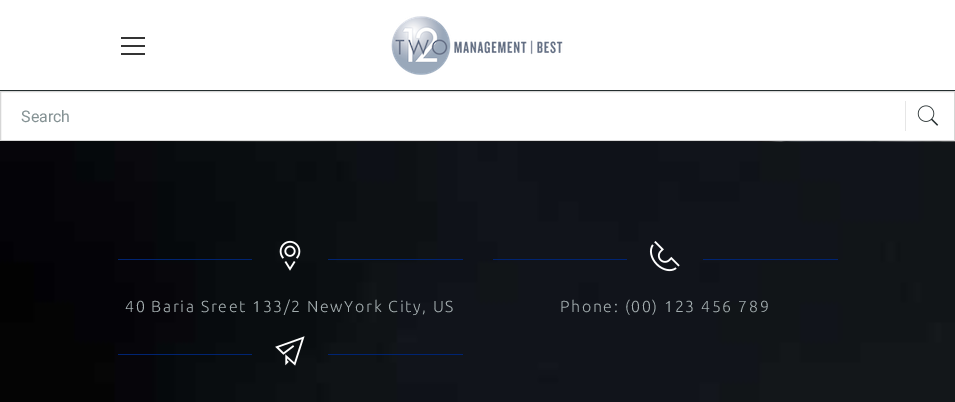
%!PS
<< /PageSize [955 402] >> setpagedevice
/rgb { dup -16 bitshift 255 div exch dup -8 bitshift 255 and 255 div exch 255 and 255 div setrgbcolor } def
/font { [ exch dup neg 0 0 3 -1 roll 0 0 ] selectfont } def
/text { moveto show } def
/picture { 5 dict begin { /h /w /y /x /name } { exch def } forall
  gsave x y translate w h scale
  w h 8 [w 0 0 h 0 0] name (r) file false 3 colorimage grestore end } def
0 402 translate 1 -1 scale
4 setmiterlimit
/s1 { /Roboto-Regular 16 font 16#859294 rgb } def
16#FFFFFF rgb
0 0 955 402 rectfill
16#242D2E rgb
0 90 955 1 rectfill
16#343434 rgb
121 37 24 2 rectfill
121 45 24 2 rectfill
121 53 24 2 rectfill
(pic1.raw) 391 16 172 59 picture
16#D6D6D6 rgb
0.5 91.5 954 49 rectstroke
s1
(Search) 21 122 text
16#E6E6E6 rgb
905 101 1 30 rectfill
(pic2.raw) 917 105 22 21 picture
(pic3.raw) 0 141 955 261 picture
16#002472 rgb
118 259 134 1 rectfill
(pic4.raw) 279 240 22 31 picture
328 259 135 1 rectfill
/Ubuntu-Light 16 font
16#A4AEB0 rgb
125 312 moveto 1.6 0 (40 Baria Sreet 133/2 NewYork City, US) ashow
16#002472 rgb
493 259 134 1 rectfill
(pic5.raw) 649 241 31 31 picture
703 259 135 1 rectfill
16#A4AEB0 rgb
560 312 moveto 1.6 0 (Phone: \(00\) 123 456 789) ashow
16#002472 rgb
118 354 134 1 rectfill
(pic6.raw) 275 336 30 30 picture
328 354 135 1 rectfill
showpage
